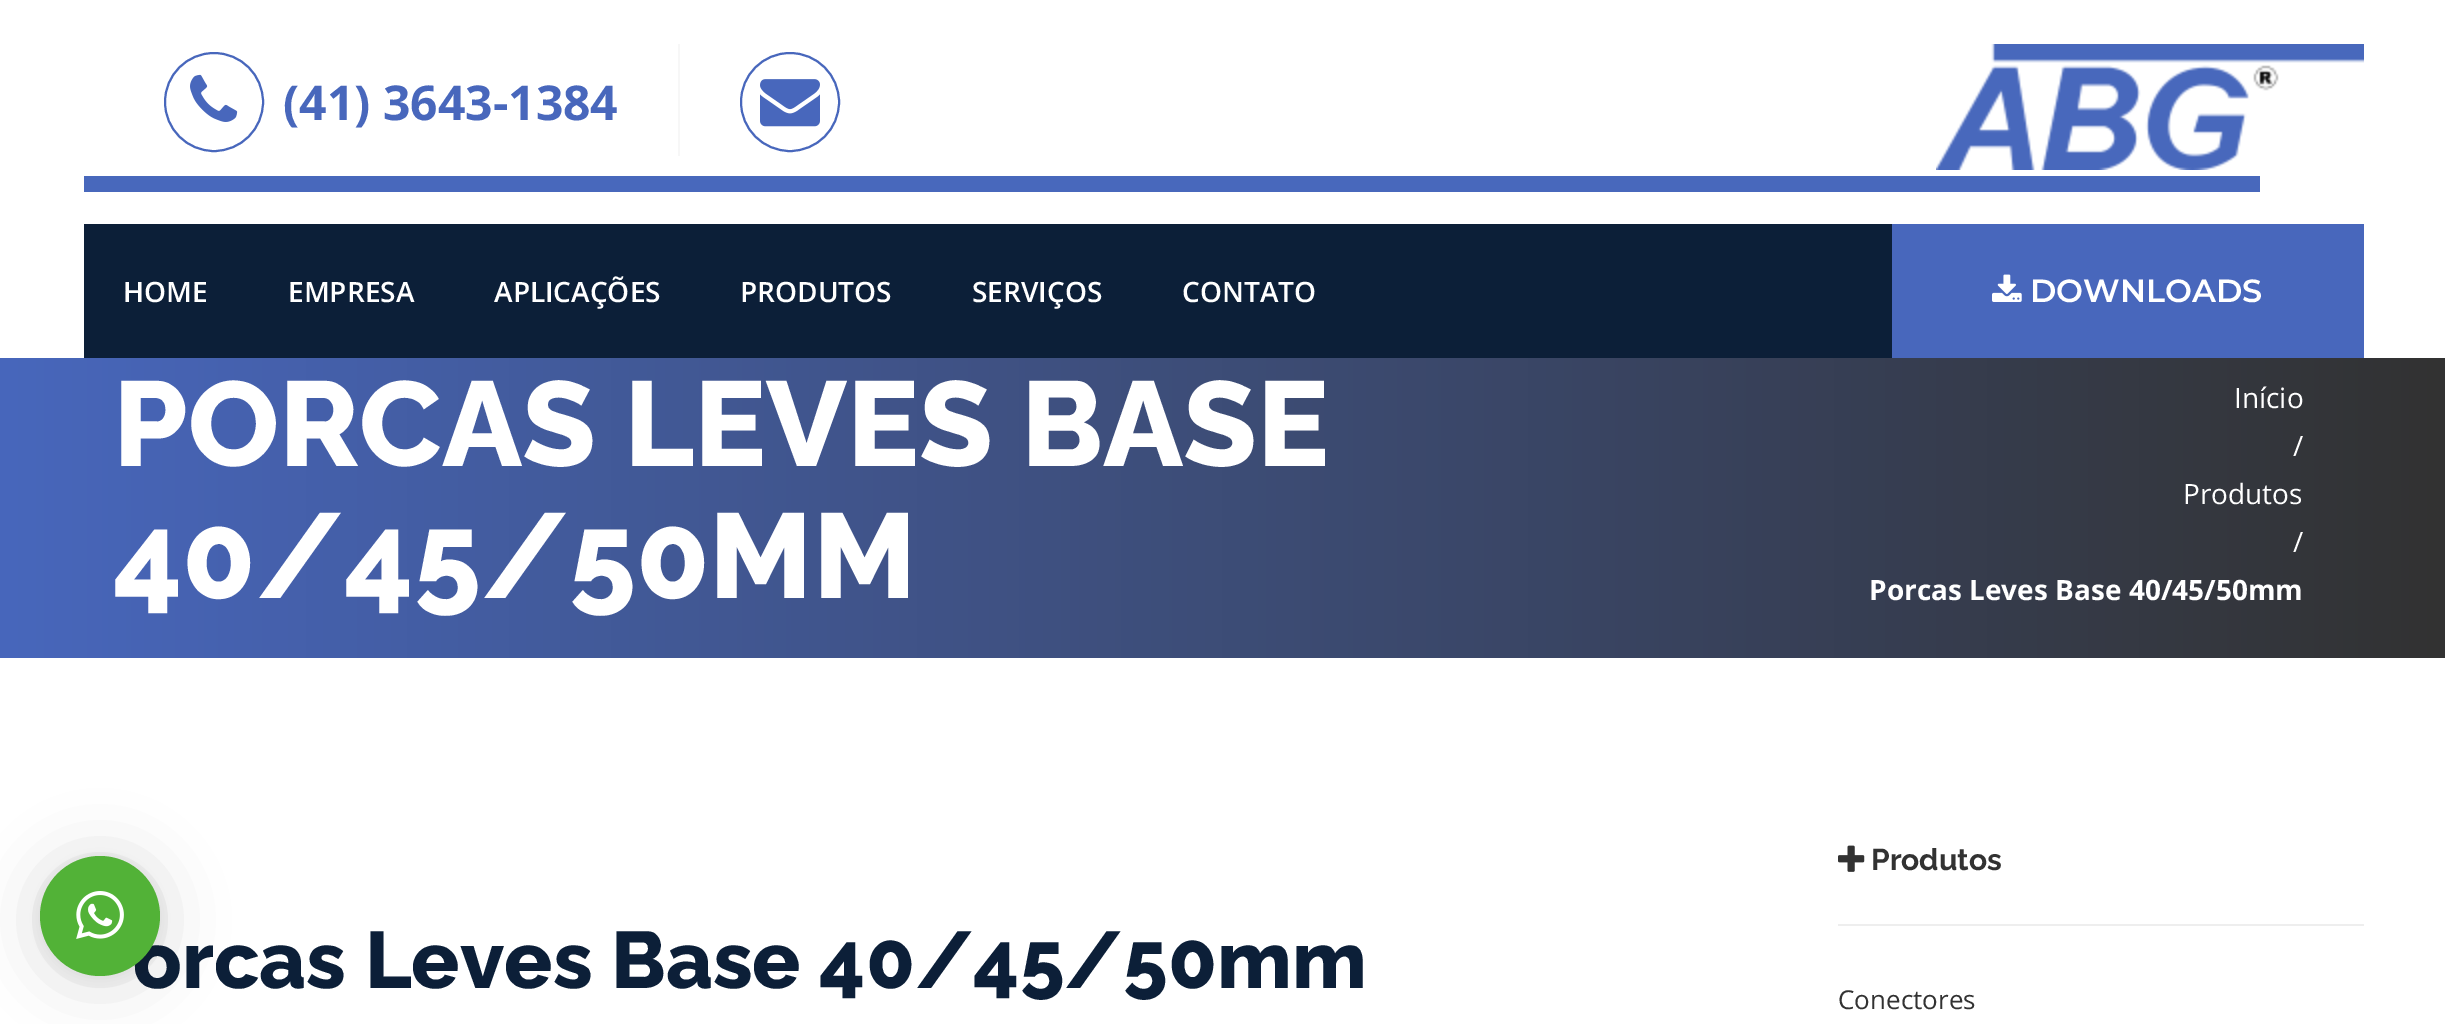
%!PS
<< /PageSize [2445 1024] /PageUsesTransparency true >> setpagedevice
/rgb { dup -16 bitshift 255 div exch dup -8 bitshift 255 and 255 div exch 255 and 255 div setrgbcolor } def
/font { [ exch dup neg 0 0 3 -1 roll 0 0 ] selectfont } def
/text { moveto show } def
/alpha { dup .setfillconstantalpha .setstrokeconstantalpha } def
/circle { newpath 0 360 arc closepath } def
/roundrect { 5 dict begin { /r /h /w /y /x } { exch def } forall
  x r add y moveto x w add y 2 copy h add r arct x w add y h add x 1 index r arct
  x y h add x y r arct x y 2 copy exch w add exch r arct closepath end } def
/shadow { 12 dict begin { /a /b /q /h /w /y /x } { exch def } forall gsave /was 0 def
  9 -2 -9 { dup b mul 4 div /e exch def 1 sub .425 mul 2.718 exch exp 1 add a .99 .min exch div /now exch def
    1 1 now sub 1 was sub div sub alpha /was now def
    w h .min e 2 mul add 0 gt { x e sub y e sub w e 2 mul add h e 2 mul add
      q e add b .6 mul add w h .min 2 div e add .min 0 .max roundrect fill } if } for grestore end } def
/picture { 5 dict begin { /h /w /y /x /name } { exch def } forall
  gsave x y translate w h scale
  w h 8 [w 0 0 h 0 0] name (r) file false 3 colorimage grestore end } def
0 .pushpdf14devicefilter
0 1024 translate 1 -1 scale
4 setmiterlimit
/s1 { /OpenSans-Bold 48 font 16#4867BC rgb } def
/s2 { /OpenSans-SemiBold 28 font 16#FFFFFF rgb } def
/s3 { /Montserrat-SemiBold 32 font 16#FFFFFF rgb } def
/s4 { /Raleway-ExtraBold 120 font 16#FFFFFF rgb } def
/s5 { /OpenSans-Regular 28 font 16#FFFFFF rgb } def
/s6 { /OpenSans-Bold 28 font 16#FFFFFF rgb } def
/s7 { /Raleway-ExtraBold 80 font 16#0C1F38 rgb } def
/s8 { /Raleway-Bold 30 font 16#323232 rgb } def
/s9 { /OpenSans-Regular 26 font 16#323232 rgb } def
16#FFFFFF rgb
0 0 2445 1024 rectfill
16#F7F7F7 rgb
678 44 2 112 rectfill
16#4867BC rgb
2 setlinewidth
214 102 49 circle stroke
(pic1.raw) 190 74 48 48 picture
s1
(\(41\) 3643-1384) 283 120 text
790 102 49 circle stroke
(pic2.raw) 760 79 60 48 picture
(pic3.raw) 1936 44 428 126 picture
16#4868BC rgb
84 176 2176 16 rectfill
16#0C1F38 rgb
84 224 1808 134 rectfill
s2
(HOME) 123 302 text
(EMPRESA) 288 302 text
(APLICAÇÕES) 494 302 text
(PRODUTOS) 740 302 text
(SERVIÇOS) 972 302 text
(CONTATO) 1182 302 text
16#4867BC rgb
1892 224 472 134 rectfill
(pic4.raw) 1992 274 30 28 picture
s3
(DOWNLOADS) 2030 302 text
gsave 0 358 moveto 2445 358 lineto 2445 658 lineto 0 658 lineto closepath clip newpath
<< /ShadingType 2 /ColorSpace /DeviceRGB /Coords [0 508 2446 508] /Extend [true true] /Function << /FunctionType 2 /Domain [0 1] /C0 [0.282 0.404 0.737] /C1 [0.196 0.196 0.196] /N 1 >> >> shfill grestore
s4
(PORCAS LEVES BASE) 113 466 text
(40/45/50MM) 113 598 text
s5
(Início) 2234 408 text
(/) 2293 456 text
(Produtos) 2183 504 text
(/) 2293 552 text
s6
(Porcas Leves Base 40/45/50mm) 1869 600 text
s7
(orcas Leves Base 40/45/50mm) 133 988 text
(pic5.raw) 1838 845 27 27 picture
s8
(Produtos) 1871 870 text
16#EEEEEE rgb
1838 924 526 2 rectfill
s9
(Conectores) 1838 1009 text
16#000000 rgb
40 860 120 120 60 32 0.16 shadow
40 858 120 120 60 6 0.06 shadow
16#52B237 rgb
100 916 60 circle fill
(pic6.raw) 76 891 48 48 picture
.poppdf14devicefilter showpage
